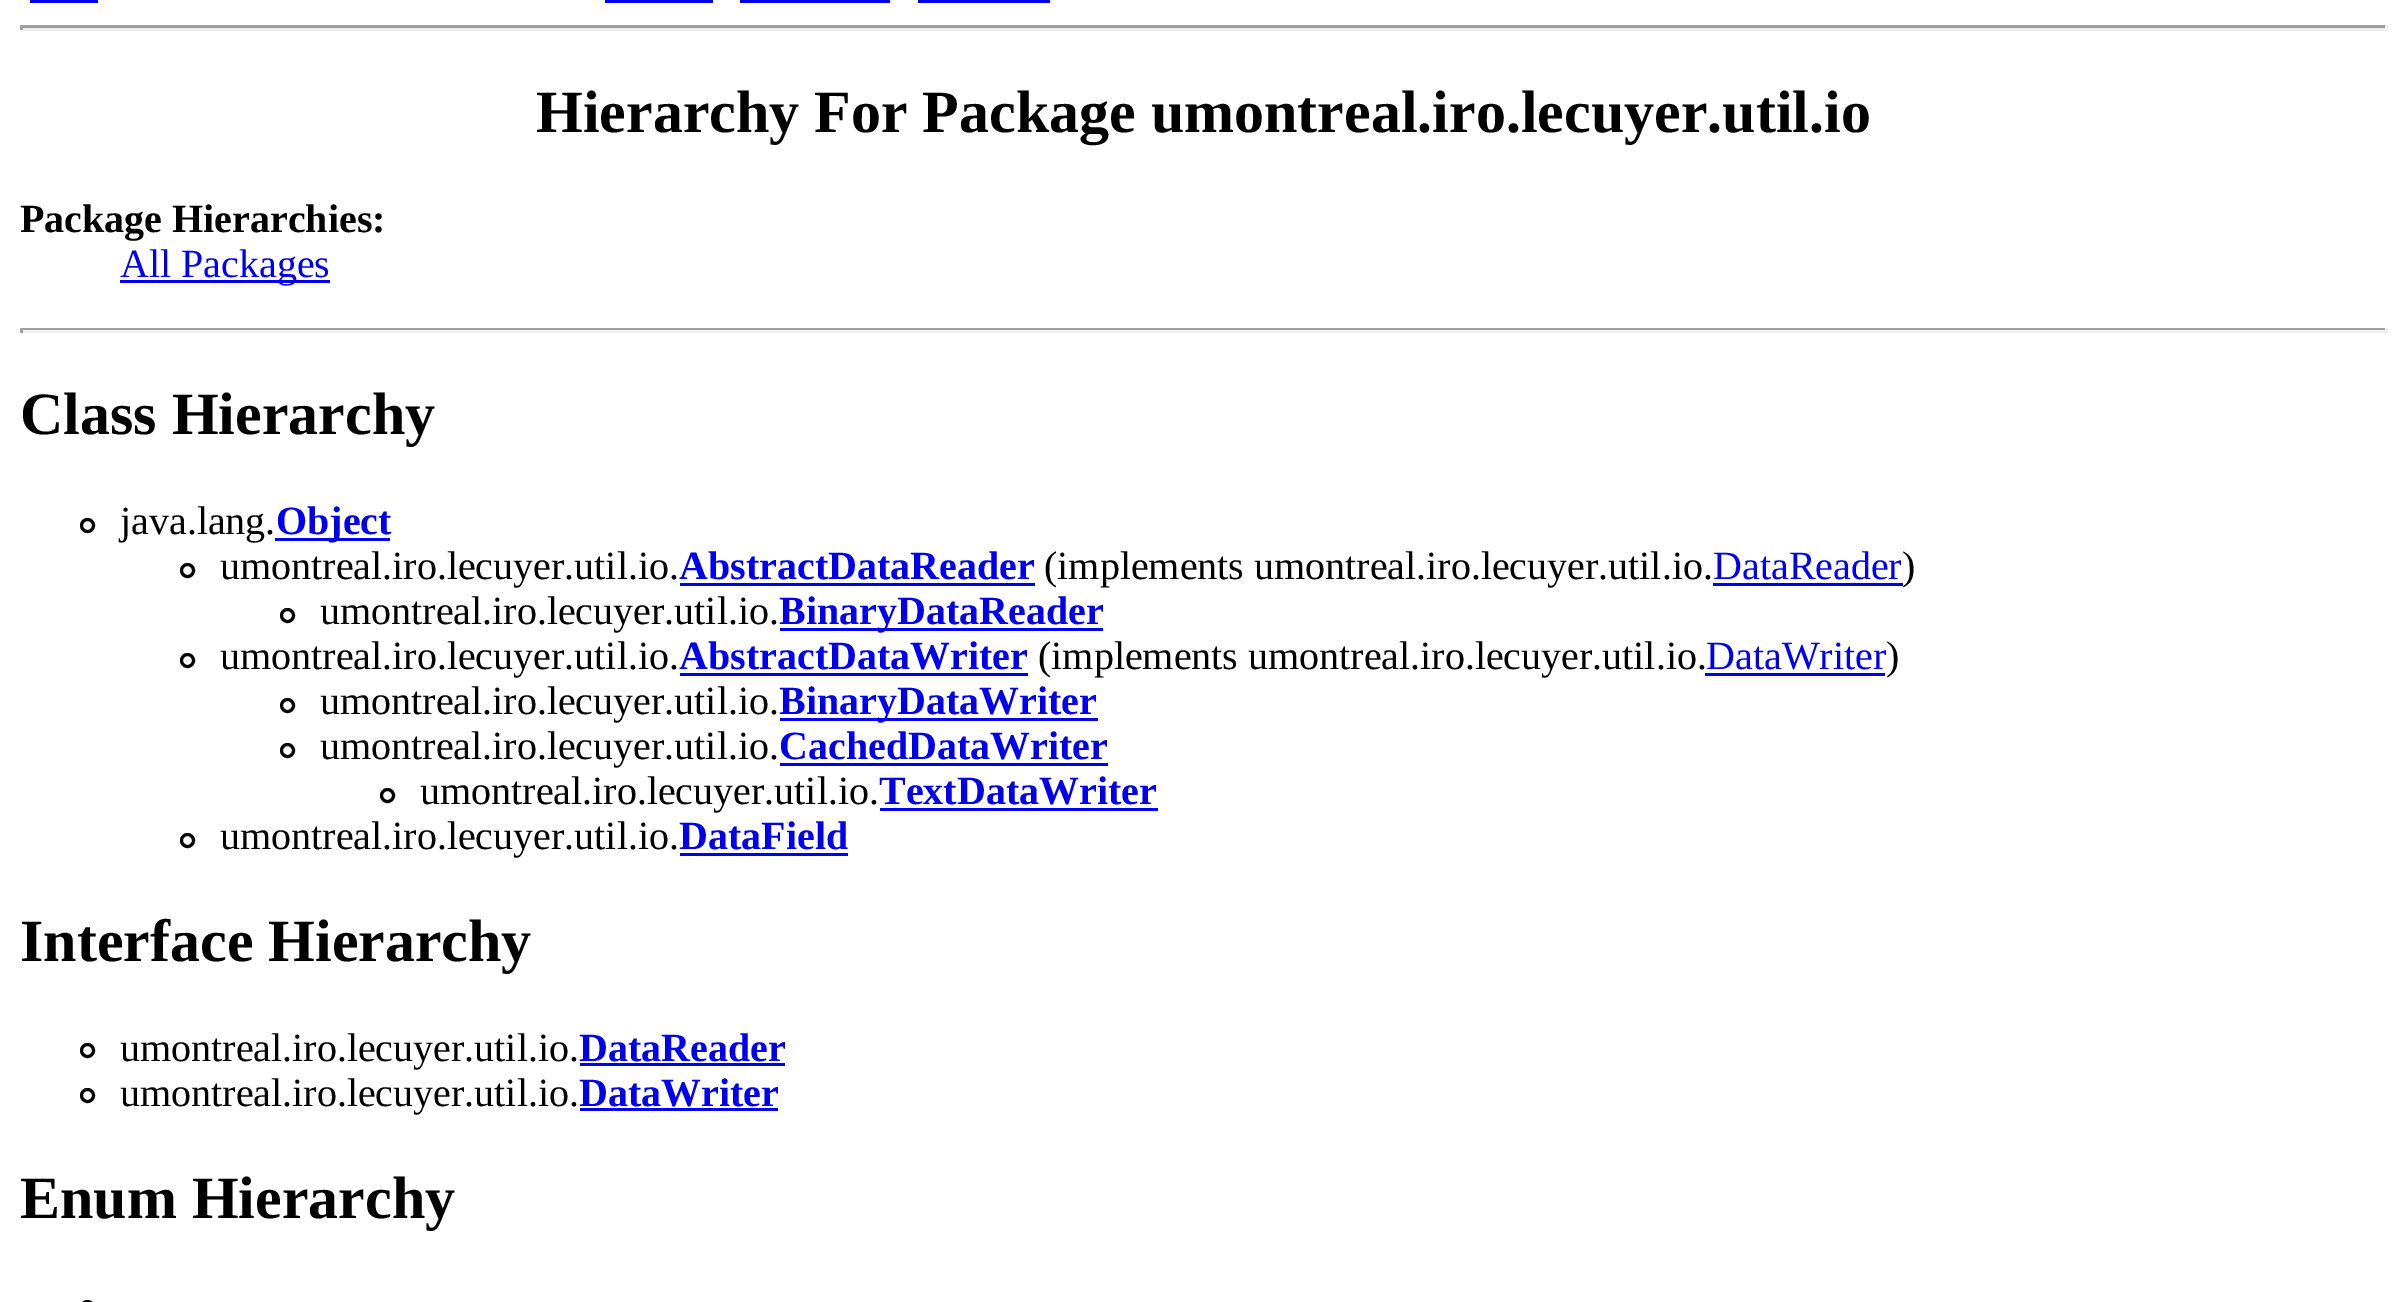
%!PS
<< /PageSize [2407 1302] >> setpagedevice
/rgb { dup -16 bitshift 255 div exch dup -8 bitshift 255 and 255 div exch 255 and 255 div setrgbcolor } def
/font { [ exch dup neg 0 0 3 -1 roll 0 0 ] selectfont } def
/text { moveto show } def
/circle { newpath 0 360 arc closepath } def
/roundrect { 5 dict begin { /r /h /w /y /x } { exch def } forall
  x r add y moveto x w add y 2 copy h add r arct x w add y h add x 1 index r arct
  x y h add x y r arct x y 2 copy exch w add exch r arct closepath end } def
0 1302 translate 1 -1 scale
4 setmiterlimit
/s1 { /LiberationSerif-Bold 60 font 16#000000 rgb } def
/s2 { /LiberationSerif-Bold 40 font 16#000000 rgb } def
/s3 { /LiberationSerif-Regular 40 font 16#0000EE rgb } def
/s4 { /LiberationSerif-Regular 40 font 16#000000 rgb } def
/s5 { /LiberationSerif-Bold 40 font 16#0000EE rgb } def
16#FFFFFF rgb
0 0 2407 1302 rectfill
16#0000EE rgb
30 0 68 3 rectfill
605 0 108 3 rectfill
740 0 150 3 rectfill
918 0 132 3 rectfill
16#9F9F9F rgb
20 25 2368 3 rectfill
16#EEEEEE rgb
2385 25 3 5 rectfill
20 28 2368 3 rectfill
16#9F9F9F rgb
20 25 3 5 rectfill
s1
(Hierarchy For Package umontreal.iro.lecuyer.util.io) 536 132 text
s2
(Package Hierarchies:) 20 232 text
16#0000EE rgb
120 280 210 3 rectfill
s3
(All Packages) 120 277 text
16#9F9F9F rgb
20 328 2368 2 rectfill
16#EEEEEE rgb
2385 328 3 5 rectfill
20 330 2368 3 rectfill
16#9F9F9F rgb
20 328 3 5 rectfill
s1
(Class Hierarchy) 20 434 text
3 setlinewidth
87.5 525.5 6 circle stroke
s4
(java.lang.) 120 534 text
16#0000EE rgb
275 538 115 3 rectfill
s5
(Object) 276 534 text
16#000000 rgb
187.5 570.5 6 circle stroke
s4
(umontreal.iro.lecuyer.util.io.) 220 579 text
s5
(AbstractDataReader) 679 579 text
680 583 355 3 rectfill
s4
(\(implements umontreal.iro.lecuyer.util.io.) 1044 579 text
s3
(DataReader) 1713 579 text
1713 583 190 3 rectfill
s4
(\)) 1902 579 text
287.5 615.5 6 circle stroke
(umontreal.iro.lecuyer.util.io.) 320 624 text
16#0000EE rgb
780 628 323 3 rectfill
s5
(BinaryDataReader) 779 624 text
16#000000 rgb
187.5 660.5 6 circle stroke
s4
(umontreal.iro.lecuyer.util.io.) 220 669 text
s5
(AbstractDataWriter) 679 669 text
680 673 348 3 rectfill
s4
(\(implements umontreal.iro.lecuyer.util.io.) 1038 669 text
s3
(DataWriter) 1706 669 text
1705 673 180 3 rectfill
s4
(\)) 1886 669 text
287.5 705.5 6 circle stroke
(umontreal.iro.lecuyer.util.io.) 320 714 text
16#0000EE rgb
780 718 318 3 rectfill
s5
(BinaryDataWriter) 779 714 text
16#000000 rgb
287.5 750.5 6 circle stroke
s4
(umontreal.iro.lecuyer.util.io.) 320 759 text
s5
(CachedDataWriter) 779 759 text
780 763 328 3 rectfill
16#000000 rgb
387.5 795.5 6 circle stroke
s4
(umontreal.iro.lecuyer.util.io.) 420 804 text
s5
(TextDataWriter) 879 804 text
880 808 278 3 rectfill
16#000000 rgb
187.5 840.5 6 circle stroke
s4
(umontreal.iro.lecuyer.util.io.) 220 849 text
s5
(DataField) 679 849 text
680 853 168 3 rectfill
s1
(Interface Hierarchy) 20 961 text
87.5 1050.5 6 circle stroke
s4
(umontreal.iro.lecuyer.util.io.) 120 1061 text
s5
(DataReader) 579 1061 text
580 1063 205 3 rectfill
16#000000 rgb
87.5 1095.5 6 circle stroke
s4
(umontreal.iro.lecuyer.util.io.) 120 1106 text
s5
(DataWriter) 579 1106 text
580 1108 198 3 rectfill
s1
(Enum Hierarchy) 20 1218 text
81.5 1301.5 12 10 6 roundrect stroke
showpage
